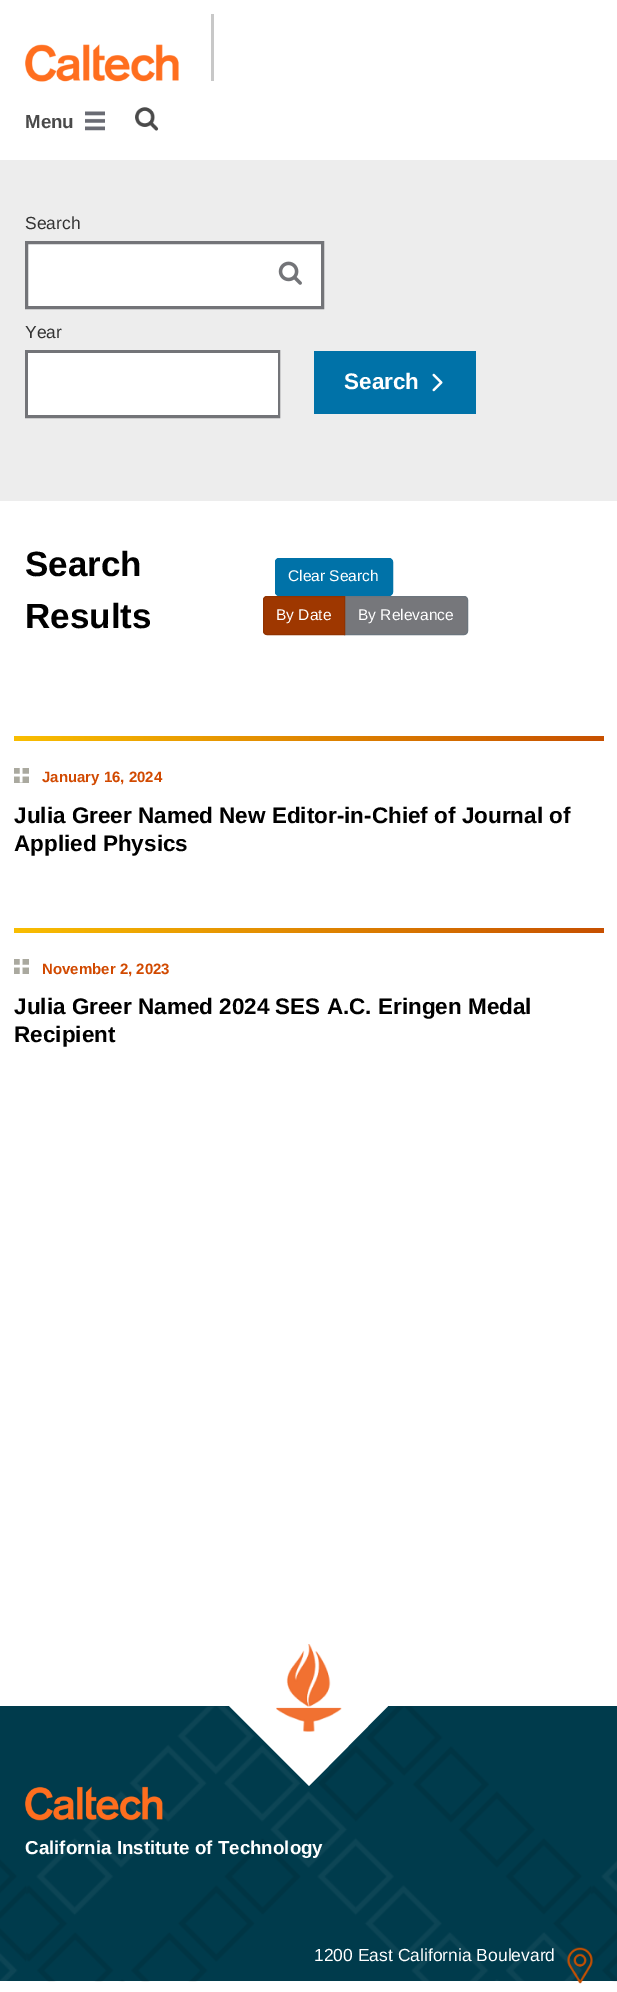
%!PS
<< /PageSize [617 1992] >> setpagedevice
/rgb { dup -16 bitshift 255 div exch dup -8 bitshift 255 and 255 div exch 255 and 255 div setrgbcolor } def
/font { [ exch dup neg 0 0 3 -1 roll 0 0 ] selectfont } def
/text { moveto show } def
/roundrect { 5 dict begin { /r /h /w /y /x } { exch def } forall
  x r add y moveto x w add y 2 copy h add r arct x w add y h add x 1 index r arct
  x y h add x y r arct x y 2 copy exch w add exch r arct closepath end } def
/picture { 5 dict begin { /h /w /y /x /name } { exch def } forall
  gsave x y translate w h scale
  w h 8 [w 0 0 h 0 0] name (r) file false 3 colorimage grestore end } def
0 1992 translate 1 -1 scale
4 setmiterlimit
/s1 { /LiberationSans-Bold 18.75 font 16#4A4A4A rgb } def
/s2 { /LiberationSans-Regular 17.5 font 16#333333 rgb } def
/s3 { /LiberationSans-Bold 22.5 font 16#FFFFFF rgb } def
/s4 { /LiberationSans-Bold 35 font 16#000000 rgb } def
/s5 { /LiberationSans-Regular 15.5 font 16#FFFFFF rgb } def
/s6 { /LiberationSans-Bold 15 font 16#D14900 rgb } def
/s7 { /LiberationSans-Bold 22.5 font 16#000000 rgb } def
/s8 { /LiberationSans-Bold 18.75 font 16#FFFFFF rgb } def
/s9 { /LiberationSans-Regular 17.5 font 16#FFFFFF rgb } def
16#FFFFFF rgb
0 0 617 1992 rectfill
(pic1.raw) 25 44 154 38 picture
16#C8C8C8 rgb
211 14 3 67 rectfill
s1
(Menu) 25 128 text
(pic2.raw) 85 111 20 20 picture
(pic3.raw) 135 107 24 24 picture
16#EDEDED rgb
0 160 617 341 rectfill
s2
(Search) 25 229 text
16#FFFFFF rgb
26.5 242.5 moveto 322.5 242.5 lineto 322.5 307.5 lineto 26.5 307.5 lineto closepath gsave fill grestore
16#737478 rgb
3 setlinewidth
stroke
(pic4.raw) 278 261 24 24 picture
s2
(Year) 25 338 text
16#737478 rgb
26.5 351.5 252 65 rectstroke
16#FFFFFF rgb
28 353 250 62 rectfill
16#0072A8 rgb
314 351 162 63 rectfill
s3
(Search) 344 389 text
(pic5.raw) 432 373 11 19 picture
s4
(Search) 25 576 text
(Results) 25 628 text
16#0072A8 rgb
275.5 558.5 117 37 3.5 roundrect gsave fill grestore
1 setlinewidth
stroke
s5
(Clear Search) 288 581 text
16#76777B rgb
344.5 596.5 moveto 464 596.5 lineto 466 596.5 467.5 598 467.5 600 curveto 467.5 631 lineto 467.5 633 466 634.5 464 634.5 curveto 344.5 634.5 lineto closepath gsave fill grestore
16#6C757D rgb
stroke
16#9E3700 rgb
267 596.5 moveto 344.5 596.5 lineto 344.5 634.5 lineto 267 634.5 lineto 265 634.5 263.5 633 263.5 631 curveto 263.5 600 lineto 263.5 598 265 596.5 267 596.5 curveto closepath gsave fill grestore
16#913300 rgb
stroke
s5
(By Date) 276 620 text
(By Relevance) 358 620 text
gsave 14 736 moveto 604 736 lineto 604 741 lineto 14 741 lineto closepath clip newpath
<< /ShadingType 2 /ColorSpace /DeviceRGB /Coords [14 739 604 739] /Extend [true true] /Function << /FunctionType 2 /Domain [0 1] /C0 [0.976 0.745 0.004] /C1 [0.78 0.314 0] /N 1 >> >> shfill grestore
16#AAA99F rgb
14 768 15 15 rectfill
gsave
14 768 15 15 rectclip
16#FFFFFF rgb
2.5 setlinewidth
21 767.5 moveto 21 782.5 lineto stroke
grestore
s6
(January 16, 2024) 42 782 text
16#FFFFFF rgb
2.5 setlinewidth
14 775 moveto 29 775 lineto stroke
s7
(Julia Greer Named New Editor-in-Chief of Journal of) 14 823 text
(Applied Physics) 14 851 text
gsave 14 928 moveto 604 928 lineto 604 933 lineto 14 933 lineto closepath clip newpath
<< /ShadingType 2 /ColorSpace /DeviceRGB /Coords [14 930 604 930] /Extend [true true] /Function << /FunctionType 2 /Domain [0 1] /C0 [0.976 0.745 0.004] /C1 [0.78 0.314 0] /N 1 >> >> shfill grestore
16#AAA99F rgb
14 959 15 15 rectfill
16#FFFFFF rgb
21 959 moveto 21 974 lineto 14 966 moveto 29 966 lineto stroke
s6
(November 2, 2023) 42 974 text
s7
(Julia Greer Named 2024 SES A.C. Eringen Medal) 14 1014 text
(Recipient) 14 1042 text
16#003B4C rgb
0 1706 617 275 rectfill
(pic6.raw) 0 1706 617 276 picture
16#FFFFFF rgb
309 1627 moveto 388 1706 lineto 309 1786 lineto 229 1706 lineto closepath fill
(pic7.raw) 276 1644 66 88 picture
(pic8.raw) 25 1786 138 35 picture
s8
(California Institute of Technology) 25 1854 text
s9
(1200 East California Boulevard) 314 1961 text
(pic9.raw) 567 1947 26 37 picture
showpage
